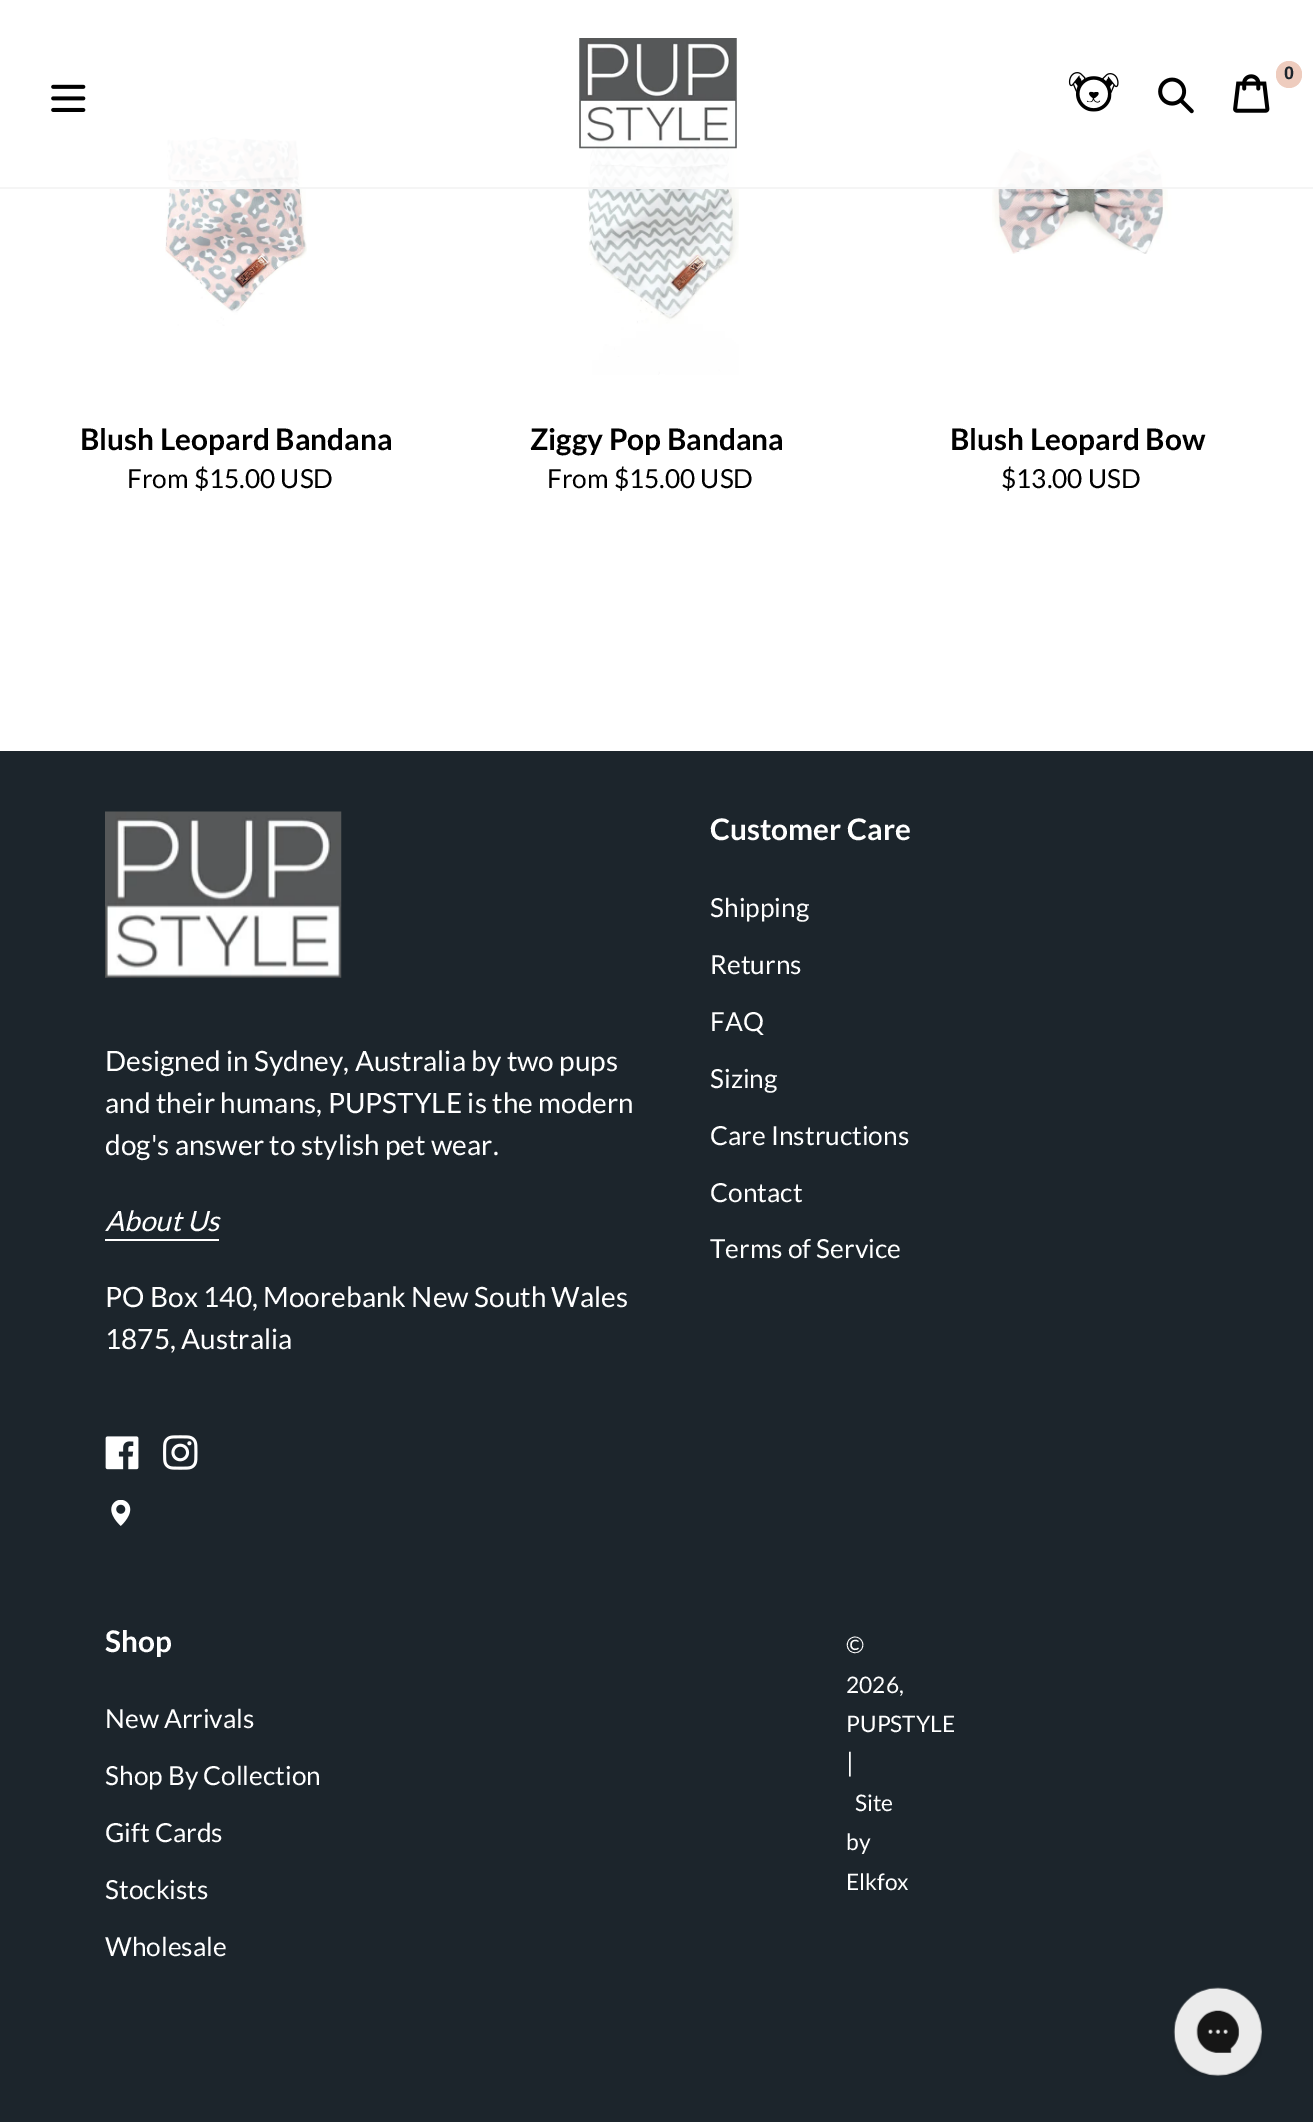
%!PS
<< /PageSize [1313 2122] /PageUsesTransparency true >> setpagedevice
/rgb { dup -16 bitshift 255 div exch dup -8 bitshift 255 and 255 div exch 255 and 255 div setrgbcolor } def
/font { [ exch dup neg 0 0 3 -1 roll 0 0 ] selectfont } def
/text { moveto show } def
/alpha { dup .setfillconstantalpha .setstrokeconstantalpha } def
/roundrect { 5 dict begin { /r /h /w /y /x } { exch def } forall
  x r add y moveto x w add y 2 copy h add r arct x w add y h add x 1 index r arct
  x y h add x y r arct x y 2 copy exch w add exch r arct closepath end } def
/picture { 5 dict begin { /h /w /y /x /name } { exch def } forall
  gsave x y translate w h scale
  w h 8 [w 0 0 h 0 0] name (r) file false 3 colorimage grestore end } def
0 .pushpdf14devicefilter
0 2122 translate 1 -1 scale
4 setmiterlimit
/s1 { /LiberationSans-Bold 18 font 16#1C252C rgb } def
/s2 { /Lato-Bold 29.75 font 16#000000 rgb } def
/s3 { /Lato-Regular 26.25 font 16#000000 rgb } def
/s4 { /Lato-Regular 28 font 16#FFFFFF rgb } def
/s5 { /Lato-Italic 28 font 16#FFFFFF rgb } def
/s6 { /Lato-Bold 29.75 font 16#FFFFFF rgb } def
/s7 { /Lato-Regular 26.25 font 16#FFFFFF rgb } def
/s8 { /Lato-Regular 22.75 font 16#FFFFFF rgb } def
16#FFFFFF rgb
0 0 1313 2122 rectfill
(pic6.raw) 165 137 142 189 picture
(pic7.raw) 588 123 151 252 picture
(pic8.raw) 992 132 197 122 picture
0.9 alpha
165 123 1024 64 rectfill
1 alpha
16#F5F5F5 rgb
0 187 1313 2 rectfill
(pic1.raw) 579 38 158 111 picture
(pic2.raw) 1068 72 51 40 picture
(pic3.raw) 1158 77 36 37 picture
(pic4.raw) 1233 74 37 39 picture
16#EECCBE rgb
1276 61 26 27 13 roundrect fill
s1
(0) 1284 79 text
(pic5.raw) 51 84 35 28 picture
s2
(Blush Leopard Bandana) 80 450 text
s3
(From $15.00 USD) 127 488 text
s2
(Ziggy Pop Bandana) 530 450 text
s3
(From $15.00 USD) 547 488 text
s2
(Blush Leopard Bow) 950 450 text
s3
($13.00 USD) 1001 488 text
16#1C252C rgb
0 751 1313 1371 rectfill
(pic9.raw) 105 811 237 167 picture
s4
(Designed in Sydney, Australia by two pups) 105 1071 text
(and their humans, PUPSTYLE is the modern) 105 1113 text
(dog's answer to stylish pet wear.) 105 1155 text
s5
(About Us) 105 1231 text
105 1239 114 2 rectfill
s4
(PO Box 140, Moorebank New South Wales) 105 1307 text
(1875, Australia) 105 1349 text
(pic10.raw) 105 1436 34 34 picture
(pic11.raw) 163 1435 35 35 picture
(pic12.raw) 111 1500 20 26 picture
s6
(Customer Care) 710 840 text
s7
(Shipping) 710 917 text
(Returns) 710 974 text
(FAQ) 710 1031 text
(Sizing) 710 1088 text
(Care Instructions) 710 1145 text
(Contact) 710 1202 text
(Terms of Service) 710 1258 text
s6
(Shop) 105 1652 text
s7
(New Arrivals) 105 1728 text
(Shop By Collection) 105 1785 text
(Gift Cards) 105 1842 text
(Stockists) 105 1899 text
(Wholesale) 105 1956 text
s8
(©) 846 1653 text
(2026,) 846 1693 text
(PUPSTYLE) 846 1732 text
s7
(|) 846 1772 text
s8
(Site) 855 1811 text
(by) 846 1850 text
(Elkfox) 846 1890 text
(pic13.raw) 1173 1987 89 89 picture
.poppdf14devicefilter showpage
